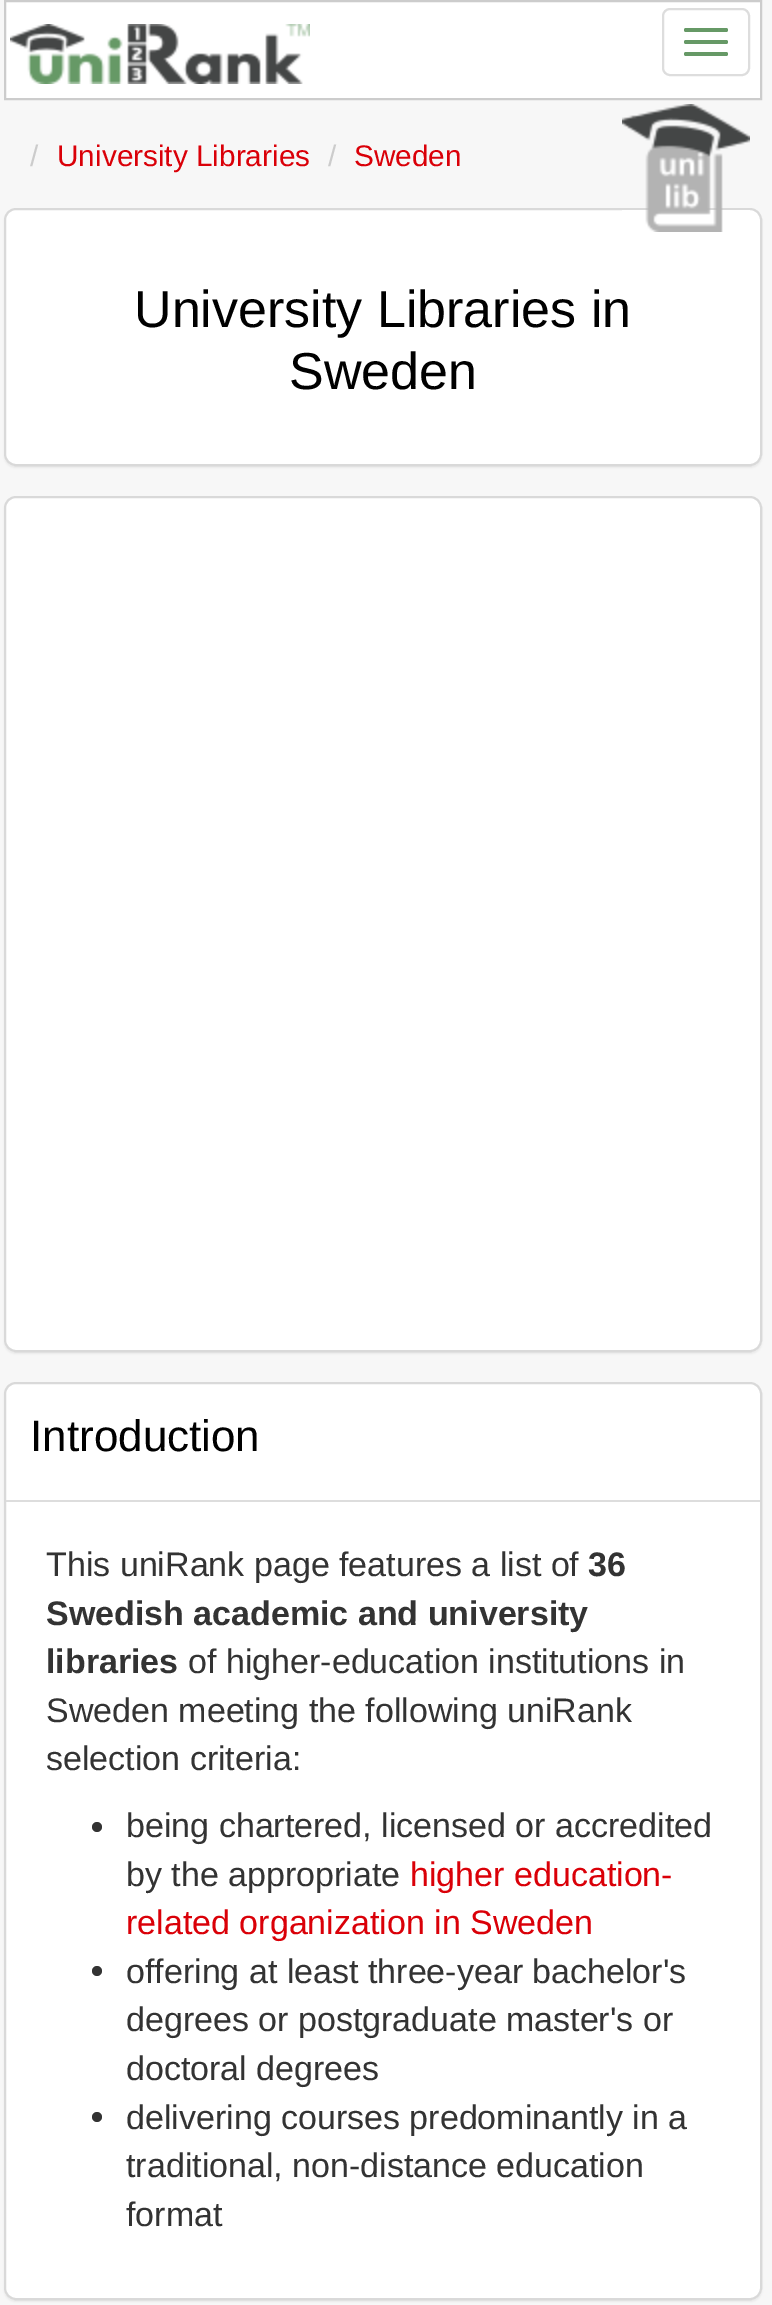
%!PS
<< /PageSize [772 2305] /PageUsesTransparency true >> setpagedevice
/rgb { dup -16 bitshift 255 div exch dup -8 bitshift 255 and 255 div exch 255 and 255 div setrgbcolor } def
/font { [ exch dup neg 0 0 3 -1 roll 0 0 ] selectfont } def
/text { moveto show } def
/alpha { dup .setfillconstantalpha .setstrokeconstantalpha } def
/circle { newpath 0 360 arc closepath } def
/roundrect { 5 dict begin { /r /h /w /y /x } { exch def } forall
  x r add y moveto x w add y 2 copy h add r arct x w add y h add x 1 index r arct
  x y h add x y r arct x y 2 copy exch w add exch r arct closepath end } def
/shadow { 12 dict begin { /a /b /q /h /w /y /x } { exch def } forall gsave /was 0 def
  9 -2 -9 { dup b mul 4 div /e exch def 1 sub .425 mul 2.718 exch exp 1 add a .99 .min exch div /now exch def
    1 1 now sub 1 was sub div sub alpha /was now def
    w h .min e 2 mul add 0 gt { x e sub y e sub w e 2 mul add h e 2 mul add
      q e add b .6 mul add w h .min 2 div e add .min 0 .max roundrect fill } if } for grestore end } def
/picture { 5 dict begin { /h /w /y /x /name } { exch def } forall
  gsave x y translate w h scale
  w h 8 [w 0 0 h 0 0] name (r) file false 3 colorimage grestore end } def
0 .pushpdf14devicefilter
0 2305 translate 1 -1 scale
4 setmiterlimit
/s1 { /LiberationSans-Regular 29.75 font 16#CCCCCC rgb } def
/s2 { /LiberationSans-Regular 29.75 font 16#DA0008 rgb } def
/s3 { /LiberationSans-Regular 52 font 16#000000 rgb } def
/s4 { /LiberationSans-Regular 44 font 16#000000 rgb } def
/s5 { /LiberationSans-Regular 34 font 16#333333 rgb } def
/s6 { /LiberationSans-Bold 34 font 16#333333 rgb } def
/s7 { /LiberationSans-Regular 34 font 16#DA0008 rgb } def
16#F7F7F7 rgb
0 0 772 2305 rectfill
16#FFFFFF rgb
5 1 moveto 761 1 lineto 761 99 lineto 5 99 lineto closepath gsave fill grestore
16#CCCCCC rgb
2 setlinewidth
stroke
(pic1.raw) 10 24 300 60 picture
16#DDDDDD rgb
663 9 86 66 7 roundrect stroke
16#669966 rgb
684 28 44 4 2 roundrect fill
684 40 44 4 2 roundrect fill
684 52 44 4 2 roundrect fill
s1
(/) 30 166 text
s2
(University Libraries) 57 166 text
s1
(/) 328 166 text
s2
(Sweden) 354 166 text
16#000000 rgb
4 210 758 258 12 1 0.05 shadow
16#FFFFFF rgb
4 208 758 258 12 roundrect fill
0.15 alpha
16#000000 rgb
5 209 756 256 11 roundrect stroke
1 alpha
(pic2.raw) 622 104 128 128 picture
s3
(University Libraries in) 134 327 text
(Sweden) 289 389 text
4 498 758 856 12 1 0.05 shadow
16#FFFFFF rgb
4 496 758 856 12 roundrect fill
0.15 alpha
16#000000 rgb
5 497 756 854 11 roundrect stroke
1 alpha
4 1384 758 918 12 1 0.05 shadow
16#FFFFFF rgb
4 1382 758 918 12 roundrect fill
0.15 alpha
16#000000 rgb
5 1383 756 916 11 roundrect stroke
1 alpha
16#DDDDDD rgb
6 1500 754 2 rectfill
s4
(Introduction) 30 1451 text
s5
(This uniRank page features a list of) 46 1576 text
s6
(36) 588 1576 text
(Swedish academic and university) 46 1625 text
(libraries) 46 1673 text
s5
(of higher-education institutions in) 188 1673 text
(Sweden meeting the following uniRank) 46 1722 text
(selection criteria:) 46 1770 text
97 1827 5 circle fill
(being chartered, licensed or accredited) 126 1837 text
(by the appropriate) 126 1886 text
s7
(higher education-) 410 1886 text
(related organization in Sweden) 126 1934 text
16#333333 rgb
97 1971 5 circle fill
(offering at least three-year bachelor's) 126 1983 text
(degrees or postgraduate master's or) 126 2031 text
(doctoral degrees) 126 2080 text
97 2117 5 circle fill
(delivering courses predominantly in a) 126 2129 text
(traditional, non-distance education) 126 2177 text
(format) 126 2226 text
.poppdf14devicefilter showpage
